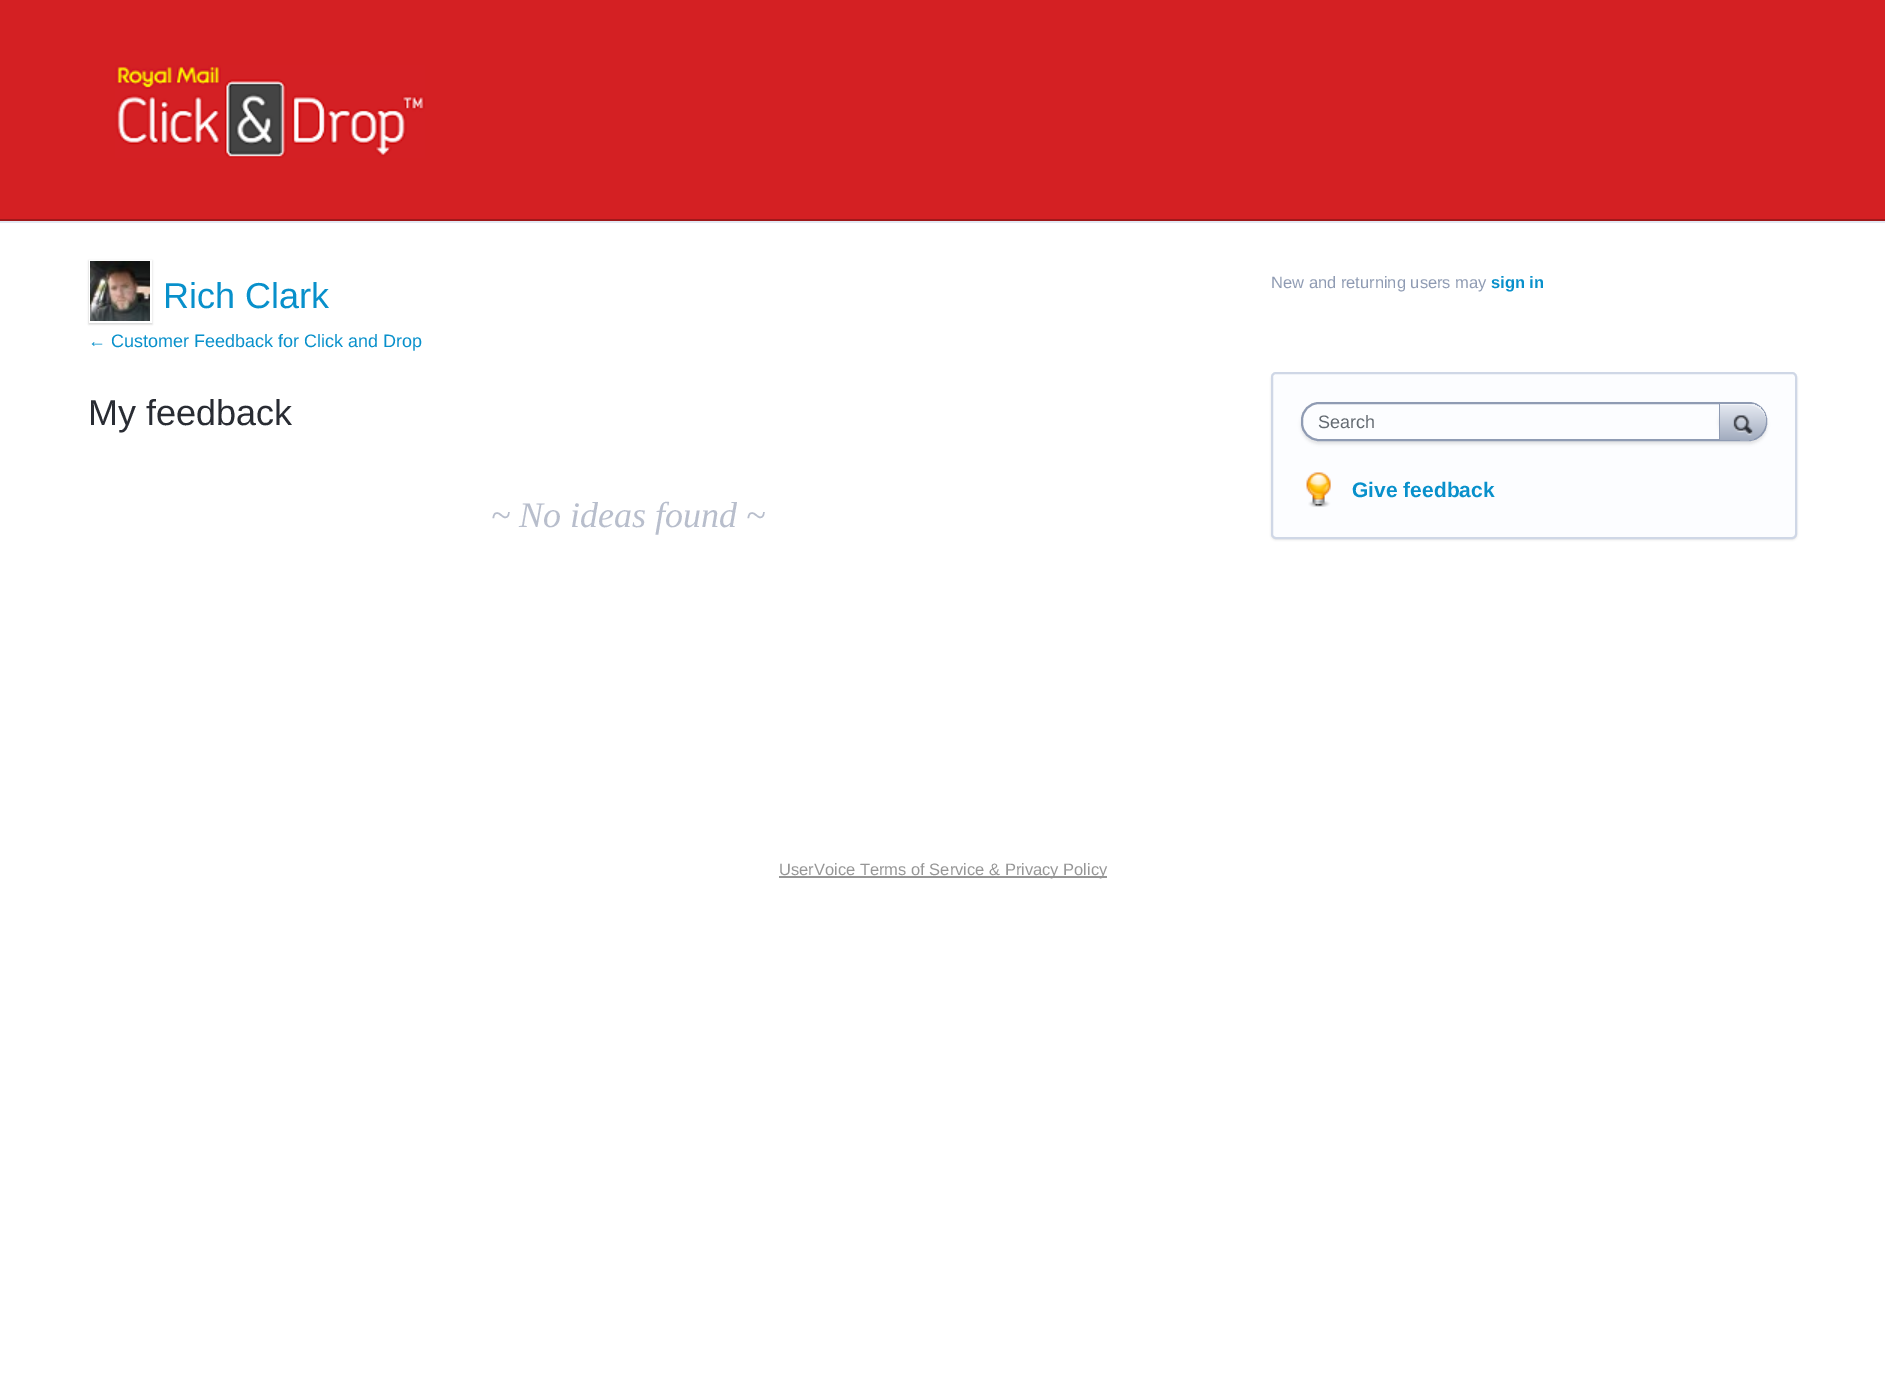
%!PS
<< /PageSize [1885 1391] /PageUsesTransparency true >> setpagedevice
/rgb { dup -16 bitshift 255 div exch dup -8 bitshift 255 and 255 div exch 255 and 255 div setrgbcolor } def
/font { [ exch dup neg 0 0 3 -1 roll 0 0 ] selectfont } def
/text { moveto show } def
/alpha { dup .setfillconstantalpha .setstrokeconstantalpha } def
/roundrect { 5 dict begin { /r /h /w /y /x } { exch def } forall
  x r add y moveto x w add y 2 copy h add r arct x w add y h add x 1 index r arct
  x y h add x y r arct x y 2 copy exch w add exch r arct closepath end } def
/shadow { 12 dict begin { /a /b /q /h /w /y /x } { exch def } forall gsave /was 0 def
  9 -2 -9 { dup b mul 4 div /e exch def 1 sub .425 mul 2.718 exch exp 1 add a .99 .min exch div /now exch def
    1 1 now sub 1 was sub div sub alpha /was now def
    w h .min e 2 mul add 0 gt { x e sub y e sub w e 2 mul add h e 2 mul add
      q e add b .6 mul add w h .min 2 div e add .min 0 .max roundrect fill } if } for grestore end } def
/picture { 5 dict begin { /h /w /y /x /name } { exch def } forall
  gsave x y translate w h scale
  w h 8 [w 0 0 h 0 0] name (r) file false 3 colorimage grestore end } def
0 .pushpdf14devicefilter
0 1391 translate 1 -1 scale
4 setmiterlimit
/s1 { /LiberationSans-Regular 36 font 16#0890CB rgb } def
/s2 { /LiberationSans-Regular 18 font 16#0890CB rgb } def
/s3 { /LiberationSans-Regular 36 font 16#292C33 rgb } def
/s4 { /LiberationSerif-Italic 36 font 16#B8BECC rgb } def
/s5 { /LiberationSans-Regular 16.5 font 16#8F9BB3 rgb } def
/s6 { /LiberationSans-Bold 16.5 font 16#0890CB rgb } def
/s7 { /LiberationSans-Regular 18 font 16#646B72 rgb } def
/s8 { /LiberationSans-Bold 21 font 16#0890CB rgb } def
/s9 { /LiberationSans-Regular 16.5 font 16#969696 rgb } def
16#FFFFFF rgb
0 0 1885 1391 rectfill
16#D42023 rgb
0 0 1885 219 rectfill
16#9F181A rgb
0 219 1885 2 rectfill
(pic1.raw) 115 65 310 93 picture
16#E3E8F2 rgb
0 221 1885 2 rectfill
16#000000 rgb
89 261 63 63 0 1 0.25 shadow
16#FFFFFF rgb
2 setlinewidth
90 261 61 61 rectstroke
(pic2.raw) 90 261 60 60 picture
s1
(Rich Clark) 163 308 text
s2
(← Customer Feedback for Click and Drop) 88 347 text
s3
(My feedback) 88 425 text
s4
(~ No ideas found ~) 491 527 text
s5
(New and returning users may) 1271 288 text
s6
(sign in) 1491 288 text
16#000000 rgb
1271 374 526 166 5 1 0.1 shadow
16#FCFDFF rgb
1272 373 524 165 4 roundrect gsave fill grestore
16#CFD7E6 rgb
stroke
16#000000 rgb
1301 405 466 39 18 1.5 0.1 shadow
16#FCFDFF rgb
1302 403 464 37 17 roundrect gsave fill grestore
16#8F9BB3 rgb
stroke
s7
(Search) 1318 428 text
gsave
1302 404 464 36 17 roundrect clip newpath
16#000000 rgb
1719 404 48 37 18 1.5 0.1 shadow
grestore
gsave 1720 404 moveto 1720 440 lineto 1739 440 lineto 1745 440 1751 441 1755 438 curveto 1772 430 1768 404 1749 404 curveto closepath clip newpath
<< /ShadingType 2 /ColorSpace /DeviceRGB /Coords [1721 404 1721 440] /Extend [true true] /Function << /FunctionType 2 /Domain [0 1] /C0 [0.902 0.918 0.949] /C1 [0.635 0.675 0.749] /N 1 >> >> shfill grestore
0.5 alpha
16#FFFFFF rgb
1720 405 moveto 1720 404 lineto 1740 404 lineto 1750 404 1762 404 1765 416 curveto 1763 410 1756 405 1749 405 curveto closepath fill
1 alpha
16#8F9BB3 rgb
1766 422 moveto 1766 429 1762.5 435 1756.5 438.5 curveto 1752.5 439.5 lineto 1760 437.5 1766 429.5 1766 422 curveto closepath fill
1719 404 1 36 rectfill
(pic3.raw) 1733 415 20 21 picture
(pic4.raw) 1306 472 25 35 picture
s8
(Give feedback) 1352 497 text
16#969696 rgb
779 876 328 2 rectfill
s9
(UserVoice Terms of Service & Privacy Policy) 779 875 text
.poppdf14devicefilter showpage
